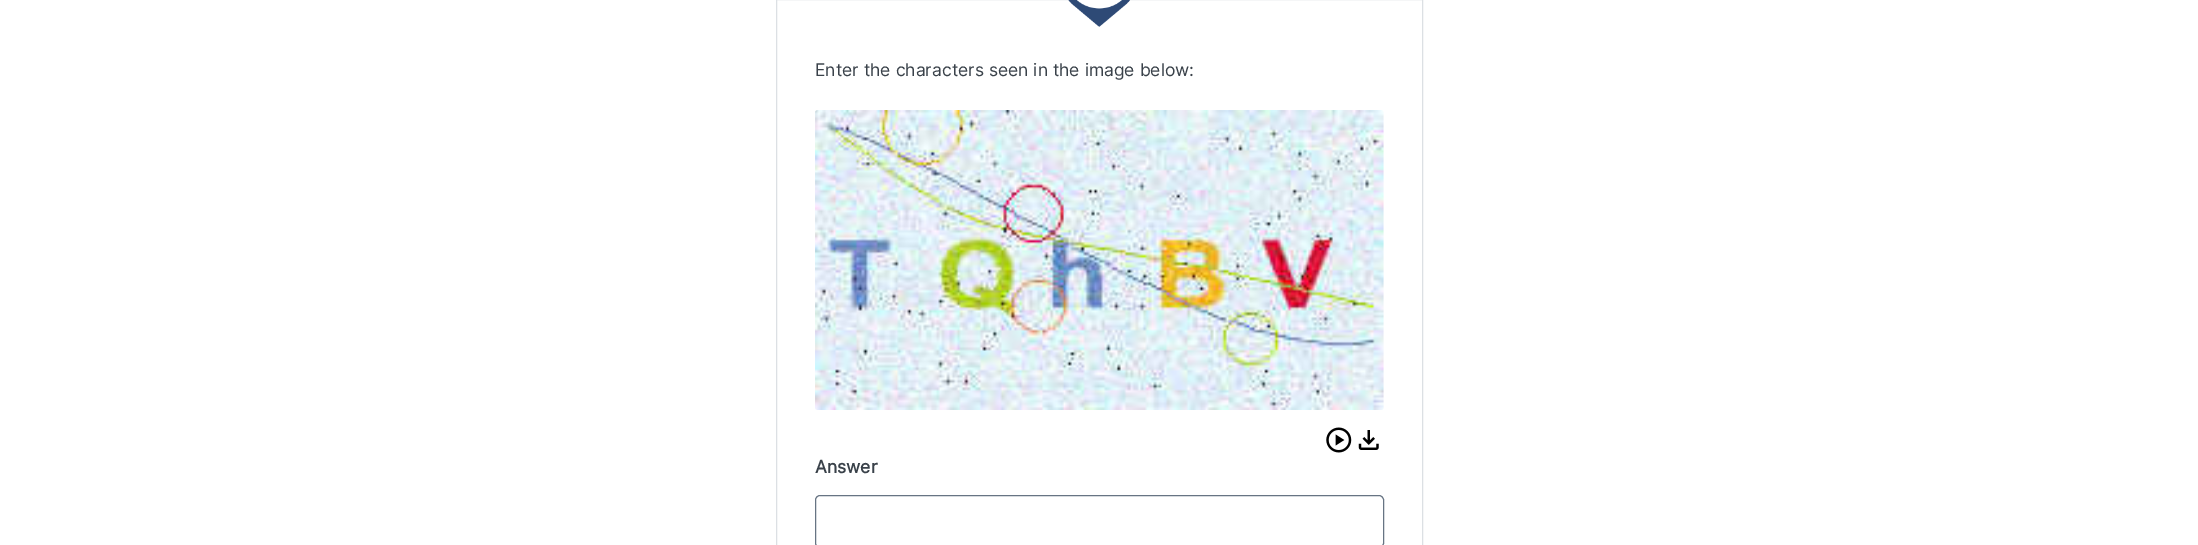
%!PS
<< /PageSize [2198 545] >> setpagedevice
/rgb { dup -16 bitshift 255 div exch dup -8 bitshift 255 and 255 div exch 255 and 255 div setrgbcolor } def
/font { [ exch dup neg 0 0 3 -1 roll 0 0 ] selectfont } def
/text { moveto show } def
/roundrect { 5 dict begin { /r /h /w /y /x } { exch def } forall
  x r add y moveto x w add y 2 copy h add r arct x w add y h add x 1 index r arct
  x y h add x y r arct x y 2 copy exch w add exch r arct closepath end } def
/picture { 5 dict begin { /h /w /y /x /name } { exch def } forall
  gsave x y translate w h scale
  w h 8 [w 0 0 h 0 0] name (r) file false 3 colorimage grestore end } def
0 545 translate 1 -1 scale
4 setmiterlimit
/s1 { /Inter-Regular 17.5 font 16#3A424A rgb } def
/s2 { /Inter-Bold 17.5 font 16#3A424A rgb } def
16#FFFFFF rgb
0 0 2198 545 rectfill
16#DCE0E4 rgb
776.5 -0.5 646 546 rectstroke
(pic1.raw) 1068 0 62 27 picture
s1
(Enter the characters seen in the image below:) 815 76 text
(pic2.raw) 815 110 569 300 picture
(pic3.raw) 1326 427 26 26 picture
(pic4.raw) 1358 430 21 20 picture
s2
(Answer) 815 473 text
16#677483 rgb
815.5 495.5 568 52 4.5 roundrect stroke
showpage
